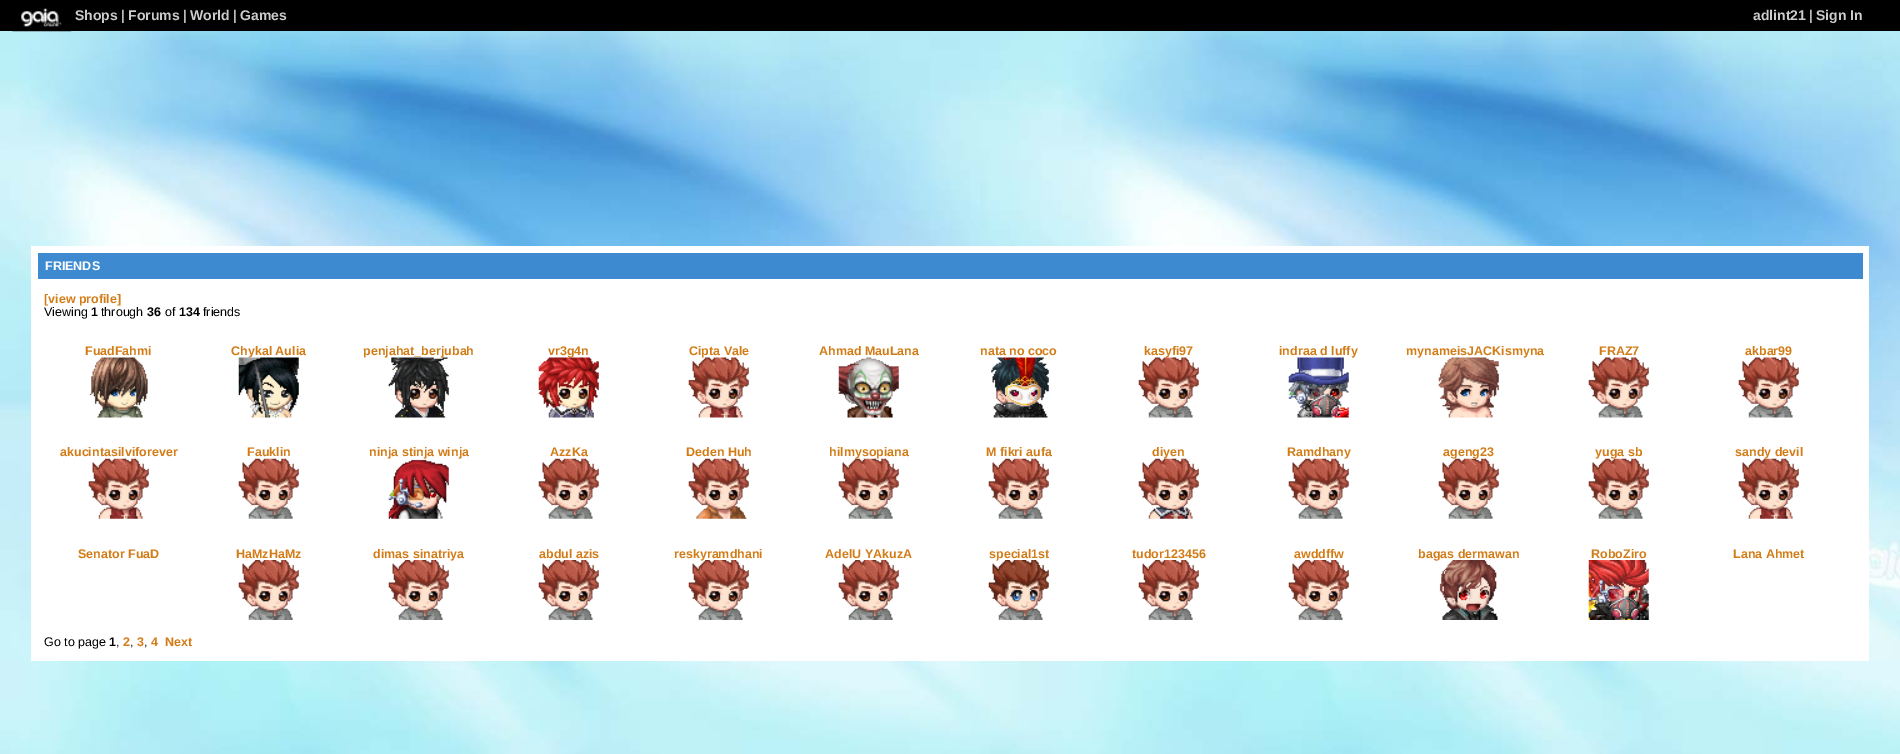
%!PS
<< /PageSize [1900 754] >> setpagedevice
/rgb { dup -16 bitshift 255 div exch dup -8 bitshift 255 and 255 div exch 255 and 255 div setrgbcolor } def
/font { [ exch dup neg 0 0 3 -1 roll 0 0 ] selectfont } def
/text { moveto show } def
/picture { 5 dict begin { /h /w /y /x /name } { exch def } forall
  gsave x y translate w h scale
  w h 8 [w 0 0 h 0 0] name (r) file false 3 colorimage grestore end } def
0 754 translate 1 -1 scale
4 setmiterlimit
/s1 { /LiberationSans-Bold 14 font 16#CCCCCC rgb } def
/s2 { /LiberationSans-Regular 14 font 16#FFFFFF rgb } def
/s3 { /LiberationSans-Bold 12.5 font 16#FFFFFF rgb } def
/s4 { /LiberationSans-Bold 12.5 font 16#D37B14 rgb } def
/s5 { /LiberationSans-Regular 12.5 font 16#000000 rgb } def
/s6 { /LiberationSans-Bold 12.5 font 16#000000 rgb } def
16#FFFFFF rgb
0 0 1900 754 rectfill
(pic1.raw) 0 31 1900 723 picture
16#000000 rgb
0 0 1900 31 rectfill
(pic2.raw) 12 8 60 24 picture
s1
(Shops) 75 20 text
s2
(|) 121 20 text
s1
(Forums) 128 20 text
s2
(|) 183 20 text
s1
(World) 190 20 text
s2
(|) 233 20 text
s1
(Games) 240 20 text
(adlint21) 1753 20 text
s2
(|) 1809 20 text
s1
(Sign In) 1816 20 text
16#FFFFFF rgb
31 246 1838 415 rectfill
16#3D8AD0 rgb
38 253 1825 26 rectfill
s3
(FRIENDS) 45 270 text
s4
([view profile]) 44 303 text
s5
(Viewing) 44 316 text
s6
(1) 91 316 text
s5
(through) 101 316 text
s6
(36) 147 316 text
s5
(of) 165 316 text
s6
(134) 179 316 text
s5
(friends) 203 316 text
s4
(FuadFahmi) 85 355 text
(pic3.raw) 89 357 59 61 picture
(Chykal Aulia) 231 355 text
(pic4.raw) 238 357 61 61 picture
(penjahat_berjubah) 363 355 text
(pic5.raw) 388 357 61 61 picture
(vr3g4n) 548 355 text
(pic6.raw) 538 357 61 61 picture
(Cipta Vale) 689 355 text
(pic7.raw) 688 357 61 61 picture
(Ahmad MauLana) 819 355 text
(pic8.raw) 838 357 61 61 picture
(nata no coco) 980 355 text
(pic9.raw) 991 357 58 61 picture
(kasyfi97) 1144 355 text
(pic10.raw) 1138 357 61 61 picture
(indraa d luffy) 1279 355 text
(pic11.raw) 1288 357 61 61 picture
(mynameisJACKismyna) 1406 355 text
(pic12.raw) 1438 357 61 61 picture
(FRAZ7) 1599 355 text
(pic13.raw) 1588 357 61 61 picture
(akbar99) 1745 355 text
(pic14.raw) 1738 357 61 61 picture
(akucintasilviforever) 60 456 text
(pic15.raw) 88 458 61 61 picture
(Fauklin) 247 456 text
(pic16.raw) 238 458 61 61 picture
(ninja stinja winja) 369 456 text
(pic17.raw) 388 459 61 60 picture
(AzzKa) 550 456 text
(pic18.raw) 538 458 61 61 picture
(Deden Huh) 686 456 text
(pic19.raw) 688 458 61 61 picture
(hilmysopiana) 829 456 text
(pic20.raw) 838 458 61 61 picture
(M fikri aufa) 986 456 text
(pic21.raw) 988 458 61 61 picture
(diyen) 1152 456 text
(pic22.raw) 1138 458 61 61 picture
(Ramdhany) 1287 456 text
(pic23.raw) 1288 458 61 61 picture
(ageng23) 1443 456 text
(pic24.raw) 1438 458 61 61 picture
(yuga sb) 1595 456 text
(pic25.raw) 1588 458 61 61 picture
(sandy devil) 1735 456 text
(pic26.raw) 1738 458 61 61 picture
(Senator FuaD) 78 558 text
(HaMzHaMz) 236 558 text
(pic27.raw) 238 560 61 60 picture
(dimas sinatriya) 373 558 text
(pic28.raw) 388 560 61 60 picture
(abdul azis) 539 558 text
(pic29.raw) 538 560 61 60 picture
(reskyramdhani) 674 558 text
(pic30.raw) 688 560 61 60 picture
(AdelU YAkuzA) 825 558 text
(pic28.raw) 838 560 61 60 picture
(special1st) 989 558 text
(pic31.raw) 988 560 61 60 picture
(tudor123456) 1132 558 text
(pic28.raw) 1138 560 61 60 picture
(awddffw) 1294 558 text
(pic29.raw) 1288 560 61 60 picture
(bagas dermawan) 1418 558 text
(pic32.raw) 1439 560 59 60 picture
(RoboZiro) 1591 558 text
(pic33.raw) 1588 560 61 60 picture
(Lana Ahmet) 1733 558 text
s5
(Go to page) 44 646 text
s6
(1) 109 646 text
s5
(,) 116 646 text
s4
(2) 123 646 text
s5
(,) 130 646 text
s4
(3) 137 646 text
s5
(,) 144 646 text
s4
(4) 151 646 text
(Next) 165 646 text
showpage
